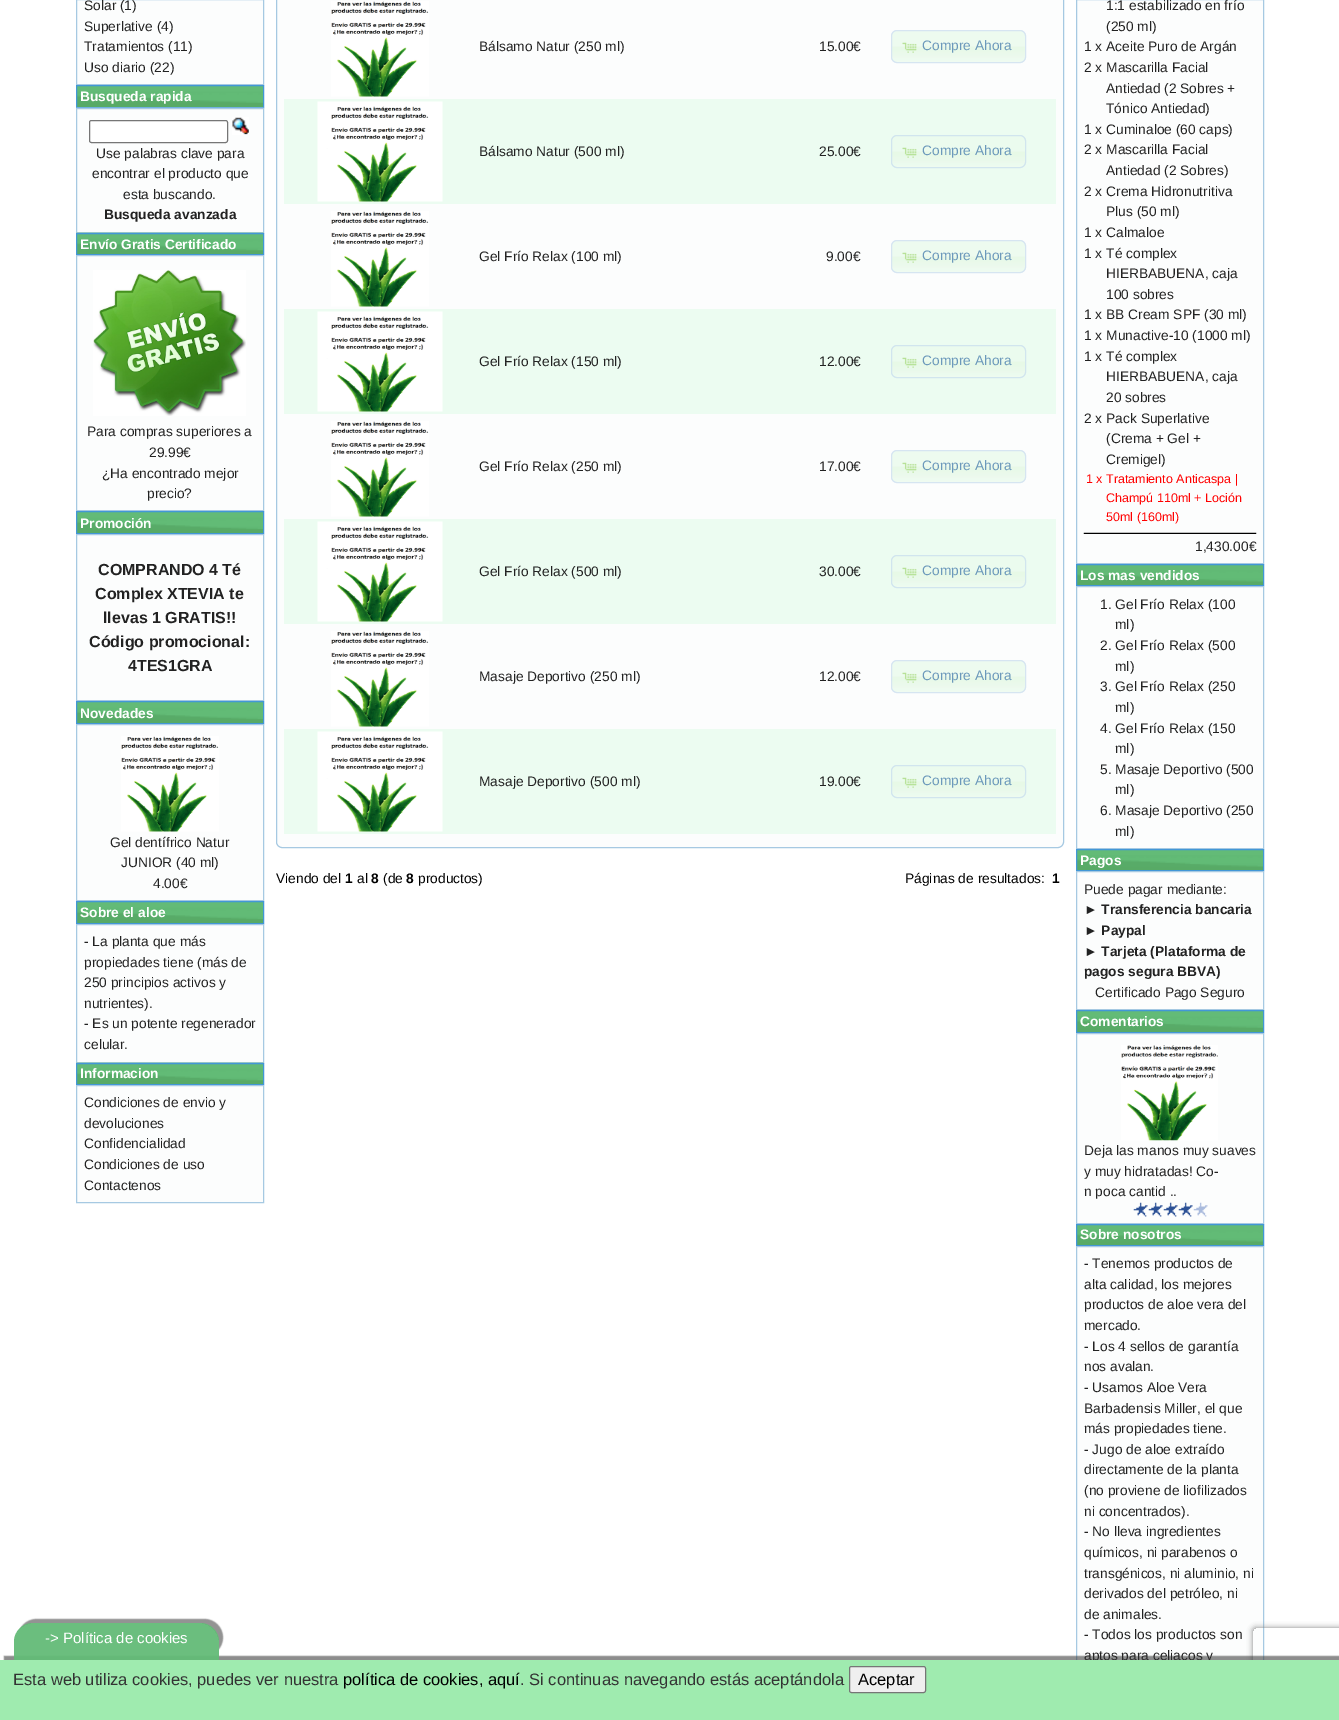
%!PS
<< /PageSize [1339 1720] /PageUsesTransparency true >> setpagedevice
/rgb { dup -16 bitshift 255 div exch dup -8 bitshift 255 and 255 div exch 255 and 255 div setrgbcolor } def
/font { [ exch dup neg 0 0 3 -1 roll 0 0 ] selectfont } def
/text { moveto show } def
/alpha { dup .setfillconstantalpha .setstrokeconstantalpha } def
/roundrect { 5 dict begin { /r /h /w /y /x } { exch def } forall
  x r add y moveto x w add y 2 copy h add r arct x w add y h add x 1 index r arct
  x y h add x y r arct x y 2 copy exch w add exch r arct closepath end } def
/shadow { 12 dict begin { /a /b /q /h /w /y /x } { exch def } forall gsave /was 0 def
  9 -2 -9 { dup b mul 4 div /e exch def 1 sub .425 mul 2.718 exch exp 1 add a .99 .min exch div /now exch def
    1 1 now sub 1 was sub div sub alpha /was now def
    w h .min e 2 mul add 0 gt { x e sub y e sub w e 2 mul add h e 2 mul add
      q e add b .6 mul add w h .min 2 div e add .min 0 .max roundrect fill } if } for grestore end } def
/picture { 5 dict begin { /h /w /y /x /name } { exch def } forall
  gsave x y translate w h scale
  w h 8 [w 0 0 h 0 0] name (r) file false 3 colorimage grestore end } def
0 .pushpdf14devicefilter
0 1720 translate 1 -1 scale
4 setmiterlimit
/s1 { /LiberationSans-Regular 13.75 font 16#222222 rgb } def
/s2 { /LiberationSans-Bold 13.75 font 16#FFFFFF rgb } def
/s3 { /LiberationSans-Bold 13.75 font 16#222222 rgb } def
/s4 { /LiberationSans-Bold 16 font 16#222222 rgb } def
/s5 { /LiberationSans-Regular 13.75 font 16#6C99BB rgb } def
/s6 { /LiberationSans-Regular 13.75 font 16#000000 rgb } def
/s7 { /LiberationSans-Bold 13.75 font 16#000000 rgb } def
/s8 { /LiberationSans-Regular 12.5 font 16#FF0000 rgb } def
/s9 { /LiberationSans-Regular 15 font 16#FFFFFF rgb } def
/s10 { /LiberationSans-Regular 16.5 font 16#333333 rgb } def
/s11 { /LiberationSans-Regular 16.5 font 16#000000 rgb } def
16#FFFFFF rgb
0 0 1339 1720 rectfill
16#FCFDFD rgb
76.5 -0.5 moveto 263.5 -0.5 lineto 263.5 84.5 lineto 76.5 84.5 lineto closepath gsave fill grestore
16#A6C9E2 rgb
stroke
s1
(Solar \(1\)) 84 10 text
(Superlative \(4\)) 84 31 text
(Tratamientos \(11\)) 84 51 text
(Uso diario \(22\)) 84 72 text
(pic1.raw) 77 86 186 21 picture
16#4297D7 rgb
76.5 85.5 187 22 rectstroke
s2
(Busqueda rapida) 80 101 text
16#FCFDFD rgb
76.5 108.5 moveto 263.5 108.5 lineto 263.5 232.5 lineto 76.5 232.5 lineto closepath gsave fill grestore
16#A6C9E2 rgb
stroke
(pic2.raw) 76 107 188 1 picture
16#FFFFFF rgb
89.5 120.5 138 22 2 roundrect gsave fill grestore
16#767676 rgb
stroke
(pic3.raw) 232 117 17 18 picture
s1
(Use palabras clave para) 96 158 text
(encontrar el producto que) 92 178 text
(esta buscando.) 123 199 text
s3
(Busqueda avanzada) 104 219 text
(pic4.raw) 76 232 188 22 picture
16#4297D7 rgb
76.5 233.5 187 21 rectstroke
s2
(Envío Gratis Certificado) 80 249 text
16#FCFDFD rgb
76.5 255.5 moveto 263.5 255.5 lineto 263.5 510.5 lineto 76.5 510.5 lineto closepath gsave fill grestore
16#A6C9E2 rgb
stroke
(pic5.raw) 93 270 153 146 picture
s1
(Para compras superiores a) 87 436 text
(29.99€) 149 457 text
(¿Ha encontrado mejor) 102 478 text
(precio?) 147 498 text
(pic6.raw) 77 512 186 21 picture
16#4297D7 rgb
76.5 511.5 187 22 rectstroke
s2
(Promoción) 80 528 text
16#FCFDFD rgb
76.5 534.5 moveto 263.5 534.5 lineto 263.5 700.5 lineto 76.5 700.5 lineto closepath gsave fill grestore
16#A6C9E2 rgb
stroke
s4
(COMPRANDO 4 Té) 98 575 text
(Complex XTEVIA te) 95 599 text
(llevas 1 GRATIS!!) 103 623 text
(Código promocional:) 89 647 text
(4TES1GRA) 128 671 text
(pic6.raw) 77 702 186 21 picture
16#4297D7 rgb
76.5 701.5 187 22 rectstroke
s2
(Novedades) 80 718 text
16#FCFDFD rgb
76.5 724.5 moveto 263.5 724.5 lineto 263.5 900.5 lineto 76.5 900.5 lineto closepath gsave fill grestore
16#A6C9E2 rgb
stroke
(pic7.raw) 121 736 98 96 picture
s1
(Gel dentífrico Natur) 110 847 text
(JUNIOR \(40 ml\)) 121 867 text
(4.00€) 153 888 text
(pic6.raw) 77 902 186 21 picture
16#4297D7 rgb
76.5 901.5 187 22 rectstroke
s2
(Sobre el aloe) 80 917 text
16#FCFDFD rgb
76.5 924.5 moveto 263.5 924.5 lineto 263.5 1062.5 lineto 76.5 1062.5 lineto closepath gsave fill grestore
16#A6C9E2 rgb
stroke
s1
(- La planta que más) 84 946 text
(propiedades tiene \(más de) 84 967 text
(250 principios activos y) 84 987 text
(nutrientes\).) 84 1008 text
(- Es un potente regenerador) 84 1028 text
(celular.) 84 1049 text
(pic4.raw) 76 1062 188 22 picture
16#4297D7 rgb
76.5 1063.5 187 21 rectstroke
s2
(Informacion) 80 1078 text
16#FCFDFD rgb
76.5 1085.5 moveto 263.5 1085.5 lineto 263.5 1202.5 lineto 76.5 1202.5 lineto closepath gsave fill grestore
16#A6C9E2 rgb
stroke
s1
(Condiciones de envio y) 84 1107 text
(devoluciones) 84 1128 text
(Confidencialidad) 84 1148 text
(Condiciones de uso) 84 1169 text
(Contactenos) 84 1190 text
16#FCFDFD rgb
276.5 -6.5 moveto 1063.5 -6.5 lineto 1063.5 842 lineto 1063.5 845 1061 847.5 1058 847.5 curveto 282 847.5 lineto 279 847.5 276.5 845 276.5 842 curveto closepath gsave fill grestore
16#A6C9E2 rgb
stroke
(pic7.raw) 331 1 98 96 picture
s1
(Bálsamo Natur \(250 ml\)) 479 51 text
(15.00€) 819 51 text
(pic8.raw) 891 30 135 33 picture
16#D6E5F1 rgb
891.5 30.5 134 32 5.5 roundrect stroke
(pic9.raw) 902 42 15 11 picture
s5
(Compre Ahora) 922 50 text
16#ECFCF1 rgb
284 99 772 105 rectfill
(pic10.raw) 317 101 126 101 picture
s1
(Bálsamo Natur \(500 ml\)) 479 156 text
(25.00€) 819 156 text
(pic11.raw) 891 135 135 33 picture
16#D1E5EE rgb
891.5 135.5 134 32 5.5 roundrect stroke
(pic12.raw) 902 147 15 11 picture
s5
(Compre Ahora) 922 155 text
(pic7.raw) 331 211 98 96 picture
s1
(Gel Frío Relax \(100 ml\)) 479 261 text
(9.00€) 826 261 text
(pic13.raw) 891 240 135 33 picture
16#D6E5F1 rgb
891.5 240.5 134 32 5.5 roundrect stroke
(pic9.raw) 902 252 15 11 picture
s5
(Compre Ahora) 922 260 text
16#ECFCF1 rgb
284 309 772 105 rectfill
(pic10.raw) 317 311 126 101 picture
s1
(Gel Frío Relax \(150 ml\)) 479 366 text
(12.00€) 819 366 text
(pic11.raw) 891 345 135 33 picture
16#D1E5EE rgb
891.5 345.5 134 32 5.5 roundrect stroke
(pic12.raw) 902 357 15 11 picture
s5
(Compre Ahora) 922 365 text
(pic14.raw) 331 421 98 96 picture
s1
(Gel Frío Relax \(250 ml\)) 479 471 text
(17.00€) 819 471 text
(pic13.raw) 891 450 135 33 picture
16#D6E5F1 rgb
891.5 450.5 134 32 5.5 roundrect stroke
(pic9.raw) 902 462 15 11 picture
s5
(Compre Ahora) 922 470 text
16#ECFCF1 rgb
284 519 772 105 rectfill
(pic10.raw) 317 521 126 101 picture
s1
(Gel Frío Relax \(500 ml\)) 479 576 text
(30.00€) 819 576 text
(pic11.raw) 891 555 135 33 picture
16#D1E5EE rgb
891.5 555.5 134 32 5.5 roundrect stroke
(pic12.raw) 902 567 15 11 picture
s5
(Compre Ahora) 922 575 text
(pic7.raw) 331 631 98 96 picture
s1
(Masaje Deportivo \(250 ml\)) 479 681 text
(12.00€) 819 681 text
(pic13.raw) 891 660 135 33 picture
16#D6E5F1 rgb
891.5 660.5 134 32 5.5 roundrect stroke
(pic9.raw) 902 672 15 11 picture
s5
(Compre Ahora) 922 680 text
16#ECFCF1 rgb
284 729 772 105 rectfill
(pic10.raw) 317 731 126 101 picture
s1
(Masaje Deportivo \(500 ml\)) 479 786 text
(19.00€) 819 786 text
(pic11.raw) 891 765 135 33 picture
16#D1E5EE rgb
891.5 765.5 134 32 5.5 roundrect stroke
(pic12.raw) 902 777 15 11 picture
s5
(Compre Ahora) 922 785 text
s6
(Viendo del) 276 883 text
s7
(1) 345 883 text
s6
(al) 357 883 text
s7
(8) 371 883 text
s6
(\(de) 383 883 text
s7
(8) 406 883 text
s6
(productos\)) 418 883 text
(Páginas de resultados:) 905 883 text
s7
(1) 1052 883 text
16#FCFDFD rgb
1076.5 -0.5 moveto 1263.5 -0.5 lineto 1263.5 563.5 lineto 1076.5 563.5 lineto closepath gsave fill grestore
16#A6C9E2 rgb
stroke
s1
(1:1 estabilizado en frío) 1106 10 text
(\(250 ml\)) 1106 31 text
(1 x Aceite Puro de Argán) 1084 51 text
(2 x Mascarilla Facial) 1084 72 text
(Antiedad \(2 Sobres +) 1106 93 text
(Tónico Antiedad\)) 1106 113 text
(1 x Cuminaloe \(60 caps\)) 1084 134 text
(2 x Mascarilla Facial) 1084 154 text
(Antiedad \(2 Sobres\)) 1106 175 text
(2 x Crema Hidronutritiva) 1084 196 text
(Plus \(50 ml\)) 1106 216 text
(1 x Calmaloe) 1084 237 text
(1 x Té complex) 1084 258 text
(HIERBABUENA, caja) 1106 278 text
(100 sobres) 1106 299 text
(1 x BB Cream SPF \(30 ml\)) 1084 319 text
(1 x Munactive-10 \(1000 ml\)) 1084 340 text
(1 x Té complex) 1084 361 text
(HIERBABUENA, caja) 1106 381 text
(20 sobres) 1106 402 text
(2 x Pack Superlative) 1084 423 text
(\(Crema + Gel +) 1106 443 text
(Cremigel\)) 1106 464 text
s8
(1 x Tratamiento Anticaspa |) 1086 483 text
(Champú 110ml + Loción) 1106 502 text
(50ml \(160ml\)) 1106 521 text
(pic15.raw) 1083 532 174 2 picture
s1
(1,430.00€) 1195 551 text
(pic16.raw) 1077 565 186 20 picture
16#4297D7 rgb
1076.5 564.5 187 21 rectstroke
s2
(Los mas vendidos) 1080 580 text
16#FCFDFD rgb
1076.5 586.5 moveto 1263.5 586.5 lineto 1263.5 848.5 lineto 1076.5 848.5 lineto closepath gsave fill grestore
16#A6C9E2 rgb
stroke
s1
(1. Gel Frío Relax \(100) 1100 609 text
(ml\)) 1115 629 text
(2. Gel Frío Relax \(500) 1100 650 text
(ml\)) 1115 671 text
(3. Gel Frío Relax \(250) 1100 691 text
(ml\)) 1115 712 text
(4. Gel Frío Relax \(150) 1100 733 text
(ml\)) 1115 753 text
(5. Masaje Deportivo \(500) 1100 774 text
(ml\)) 1115 794 text
(6. Masaje Deportivo \(250) 1100 815 text
(ml\)) 1115 836 text
(pic16.raw) 1077 850 186 20 picture
16#4297D7 rgb
1076.5 849.5 187 21 rectstroke
s2
(Pagos) 1080 865 text
16#FCFDFD rgb
1076.5 871.5 moveto 1263.5 871.5 lineto 1263.5 1009.5 lineto 1076.5 1009.5 lineto closepath gsave fill grestore
16#A6C9E2 rgb
stroke
s1
(Puede pagar mediante:) 1084 894 text
s3
(► Transferencia bancaria) 1084 914 text
(► Paypal) 1084 935 text
(► Tarjeta \(Plataforma de) 1084 956 text
(pagos segura BBVA\)) 1084 976 text
s1
(Certificado Pago Seguro) 1095 997 text
(pic17.raw) 1077 1011 186 21 picture
16#4297D7 rgb
1076.5 1010.5 187 22 rectstroke
s2
(Comentarios) 1080 1026 text
16#FCFDFD rgb
1076.5 1033.5 moveto 1263.5 1033.5 lineto 1263.5 1223.5 lineto 1076.5 1223.5 lineto closepath gsave fill grestore
16#A6C9E2 rgb
stroke
(pic18.raw) 1121 1045 97 96 picture
s1
(Deja las manos muy suaves) 1084 1155 text
(y muy hidratadas! Co-) 1084 1176 text
(n poca cantid ..) 1084 1196 text
(pic19.raw) 1133 1202 75 15 picture
(pic16.raw) 1077 1225 186 20 picture
16#4297D7 rgb
1076.5 1224.5 187 21 rectstroke
s2
(Sobre nosotros) 1080 1239 text
16#FCFDFD rgb
1077 1247 186 413 rectfill
16#A6C9E2 rgb
1076.5 1246.5 187 447 rectstroke
s1
(- Tenemos productos de) 1084 1268 text
(alta calidad, los mejores) 1084 1289 text
(productos de aloe vera del) 1084 1309 text
(mercado.) 1084 1330 text
(- Los 4 sellos de garantía) 1084 1351 text
(nos avalan.) 1084 1371 text
(- Usamos Aloe Vera) 1084 1392 text
(Barbadensis Miller, el que) 1084 1413 text
(más propiedades tiene.) 1084 1433 text
(- Jugo de aloe extraído) 1084 1454 text
(directamente de la planta) 1084 1474 text
(\(no proviene de liofilizados) 1084 1495 text
(ni concentrados\).) 1084 1516 text
(- No lleva ingredientes) 1084 1536 text
(químicos, ni parabenos o) 1084 1557 text
(transgénicos, ni aluminio, ni) 1084 1578 text
(derivados del petróleo, ni) 1084 1598 text
(de animales.) 1084 1619 text
(- Todos los productos son) 1084 1639 text
(aptos para celiacos y) 1084 1660 text
gsave
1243 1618 moveto 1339 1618 lineto 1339 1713 lineto 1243 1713 lineto closepath 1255.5 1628 moveto 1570.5 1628 lineto 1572 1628 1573 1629 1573 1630.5 curveto 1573 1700.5 lineto 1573 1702 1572 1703 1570.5 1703 curveto 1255.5 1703 lineto 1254 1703 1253 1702 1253 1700.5 curveto 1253 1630.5 lineto 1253 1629 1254 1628 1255.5 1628 curveto closepath eoclip newpath
16#808080 rgb
1253 1628 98 75 2.5 3 1 shadow
grestore
16#323232 rgb
4 1656 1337 60 0 0.5 0.56 shadow
16#9FEBAF rgb
0 1660 1339 60 rectfill
gsave
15 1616 moveto 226 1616 lineto 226 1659 lineto 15 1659 lineto closepath 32.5 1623 moveto 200.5 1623 lineto 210.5 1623 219 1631.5 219 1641.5 curveto 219 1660 lineto 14 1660 lineto 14 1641.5 lineto 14 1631.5 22.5 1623 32.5 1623 curveto closepath eoclip newpath
16#3C3C3C rgb
18 1619 205 37 18.5 0.5 0.56 shadow
grestore
0.95 alpha
16#63BB77 rgb
32.5 1623 moveto 200.5 1623 lineto 210.5 1623 219 1631.5 219 1641.5 curveto 219 1660 lineto 14 1660 lineto 14 1641.5 lineto 14 1631.5 22.5 1623 32.5 1623 curveto closepath fill
1 alpha
s9
(-> Política de cookies) 45 1643 text
s10
(Esta web utiliza cookies, puedes ver nuestra) 13 1685 text
s11
(política de cookies, aquí) 343 1685 text
s10
(. Si continuas navegando estás aceptándola) 520 1685 text
16#EFEFEF rgb
849.5 1666.5 76 26 2 roundrect gsave fill grestore
16#767676 rgb
stroke
s11
(Aceptar) 858 1685 text
.poppdf14devicefilter showpage
